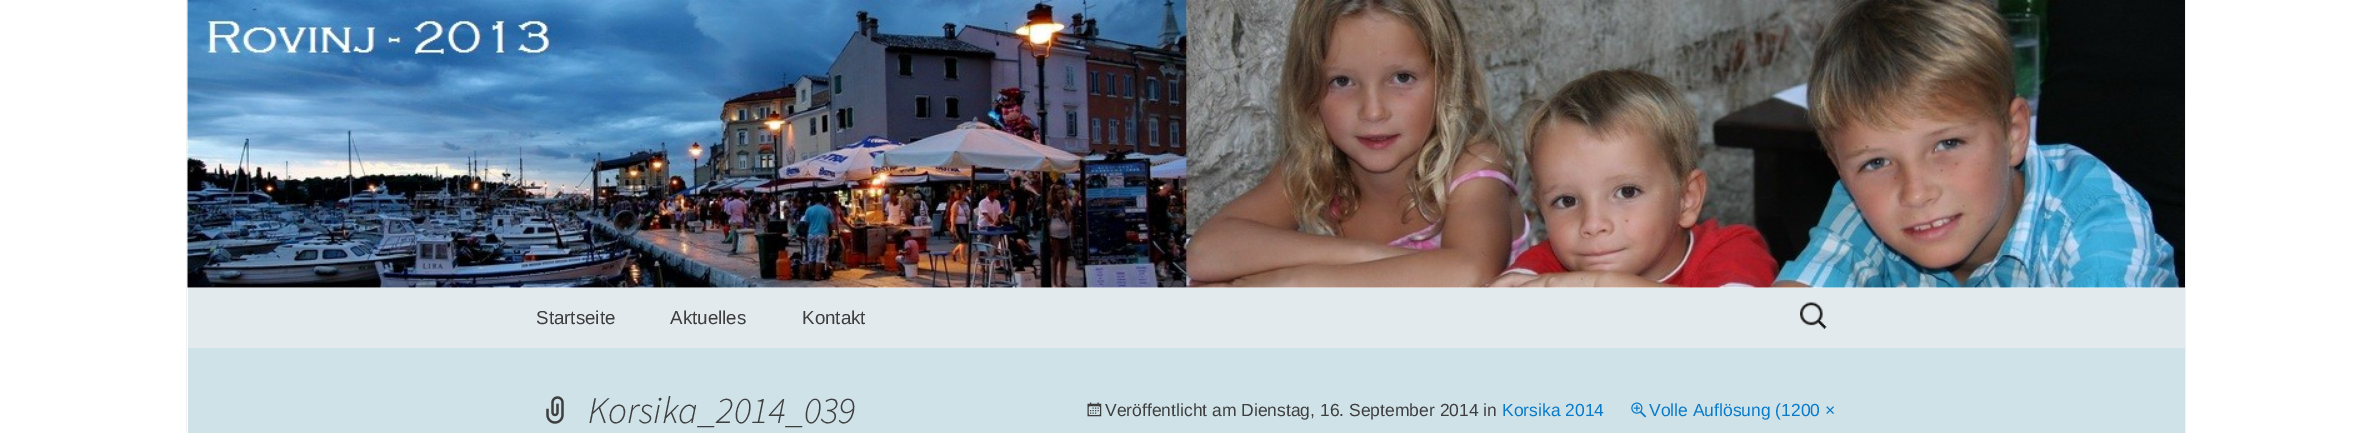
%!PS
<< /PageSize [2371 433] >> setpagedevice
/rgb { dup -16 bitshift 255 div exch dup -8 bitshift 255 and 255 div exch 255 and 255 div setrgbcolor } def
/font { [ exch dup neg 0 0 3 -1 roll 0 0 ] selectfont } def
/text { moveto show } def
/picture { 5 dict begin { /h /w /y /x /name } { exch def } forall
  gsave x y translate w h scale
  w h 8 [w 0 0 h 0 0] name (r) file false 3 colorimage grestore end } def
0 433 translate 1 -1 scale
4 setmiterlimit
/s1 { /LiberationSans-Regular 18.75 font 16#3E3E3E rgb } def
/s2 { /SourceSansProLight-LightItalic 37.5 font 16#3E3E3E rgb } def
/s3 { /LiberationSans-Regular 17.5 font 16#3E3E3E rgb } def
/s4 { /LiberationSans-Regular 17.5 font 16#087ACA rgb } def
16#FFFFFF rgb
0 0 2371 433 rectfill
16#F2F2F2 rgb
2185 0 1 433 rectfill
186 0 1 433 rectfill
(pic1.raw) 187 0 1998 288 picture
16#E3EAEE rgb
188 288 1997 60 rectfill
s1
(Startseite) 536 324 text
(Aktuelles) 670 324 text
(Kontakt) 802 324 text
(pic2.raw) 1800 302 27 27 picture
16#CEE2E8 rgb
188 348 1997 85 rectfill
(pic3.raw) 546 396 18 28 picture
s2
(Korsika_2014_039) 588 423 text
(pic4.raw) 1087 402 15 15 picture
s3
(Veröffentlicht am Dienstag, 16. September 2014 in) 1105 416 text
s4
(Korsika 2014) 1502 416 text
(pic5.raw) 1631 402 16 16 picture
(Volle Auflösung \(1200 ×) 1649 416 text
showpage
